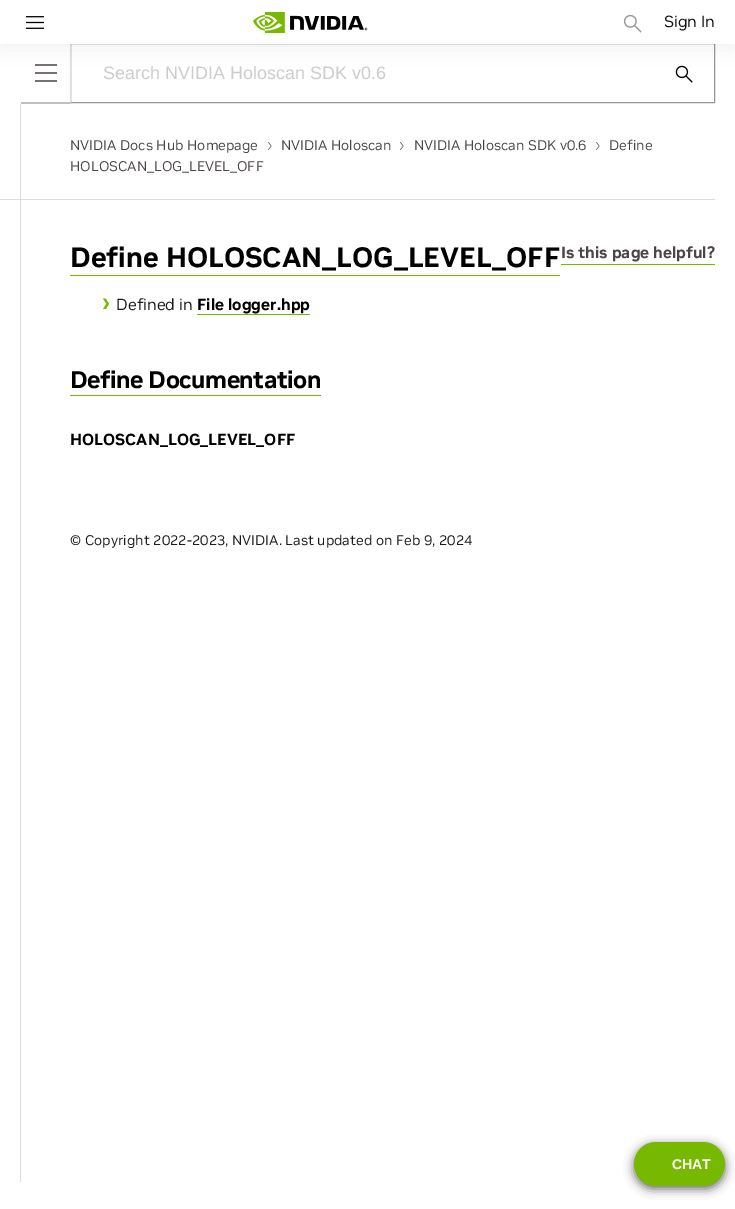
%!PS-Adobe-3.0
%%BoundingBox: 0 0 735 1209
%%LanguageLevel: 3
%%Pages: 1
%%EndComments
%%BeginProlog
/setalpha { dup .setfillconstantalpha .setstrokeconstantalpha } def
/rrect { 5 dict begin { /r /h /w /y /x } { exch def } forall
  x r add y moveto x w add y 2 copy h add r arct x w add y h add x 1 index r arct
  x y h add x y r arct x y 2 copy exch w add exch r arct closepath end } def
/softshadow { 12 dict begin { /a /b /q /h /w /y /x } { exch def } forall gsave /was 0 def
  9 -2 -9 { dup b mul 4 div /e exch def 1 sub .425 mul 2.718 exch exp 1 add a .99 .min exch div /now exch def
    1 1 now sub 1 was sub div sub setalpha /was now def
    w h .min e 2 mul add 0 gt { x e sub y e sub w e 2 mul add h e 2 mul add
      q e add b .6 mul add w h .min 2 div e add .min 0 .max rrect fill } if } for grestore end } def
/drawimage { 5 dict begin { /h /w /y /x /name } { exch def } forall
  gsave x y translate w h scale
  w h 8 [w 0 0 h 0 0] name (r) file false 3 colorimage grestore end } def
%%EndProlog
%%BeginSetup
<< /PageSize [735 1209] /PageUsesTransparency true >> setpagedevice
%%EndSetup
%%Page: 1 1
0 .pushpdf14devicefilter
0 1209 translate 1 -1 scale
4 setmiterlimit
1 setgray
0 0 735 1209 rectfill
0.592 setgray
70.5 43.5 644 59 rectstroke
1 setgray
70 44 1 59 rectfill
0.867 setgray
newpath 71 17 moveto 71 104 lineto 70 102 lineto 70 17 lineto closepath fill
0.471 0.443 0.443 setrgbcolor
35 64 22 2 rectfill
35 72 22 2 rectfill
(images/4.raw) 675 65 18 18 drawimage
0 setgray
0 5 735 44 0 10 0.05 softshadow
1 setgray
0 0 735 44 rectfill
(images/1.raw) 26 16 18 13 drawimage
(images/2.raw) 253 12 115 21 drawimage
(images/3.raw) 623 14 19 19 drawimage
0.753 setgray
newpath 71 104 moveto 21 104 lineto 21 102 lineto 70 102 lineto closepath fill
0.471 0.443 0.443 setrgbcolor
35 80 22 2 rectfill
0.867 setgray
0 199 715 1 rectfill
20 104 1 1078 rectfill
(images/5.raw) 268 142 4 8 drawimage
(images/5.raw) 400 142 4 8 drawimage
(images/5.raw) 596 142 4 8 drawimage
0.455 0.725 0 setrgbcolor
70 275 490 1 rectfill
561 264 154 1 rectfill
197 314 113 1 rectfill
70 395 251 1 rectfill
0.4 setgray
634 1145 91 44 22 5 1 softshadow
0.463 0.725 0 setrgbcolor
634 1142 91 44 22 rrect fill
/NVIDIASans-Regular [16 0 0 -16 0 0] selectfont
0.067 setgray
664 27 moveto (Sign In) show
/LiberationSans-Regular [18 0 0 -18 0 0] selectfont
0.8 setgray
103 79 moveto (Search NVIDIA Holoscan SDK v0.6) show
/NVIDIASans-Regular [14 0 0 -14 0 0] selectfont
0.294 0.271 0.271 setrgbcolor
70 150 moveto (NVIDIA Docs Hub Homepage) show
281 150 moveto (NVIDIA Holoscan) show
414 150 moveto (NVIDIA Holoscan SDK v0.6) show
609 150 moveto (Define) show
70 171 moveto (HOLOSCAN_LOG_LEVEL_OFF) show
/NVIDIASans-Bold [28 0 0 -28 0 0] selectfont
0 setgray
70 267 moveto (Define HOLOSCAN_LOG_LEVEL_OFF) show
/NVIDIASans-Bold [16 0 0 -16 0 0] selectfont
0.294 0.271 0.271 setrgbcolor
561 258 moveto (Is this page helpful?) show
/NVIDIASans-Medium [24 0 0 -24 0 0] selectfont
0.455 0.725 0 setrgbcolor
102 310 moveto (›) show
/NVIDIASans-Regular [16 0 0 -16 0 0] selectfont
0.102 setgray
116 310 moveto (Defined in) show
/NVIDIASans-Bold [16 0 0 -16 0 0] selectfont
0 setgray
197 310 moveto (File logger.hpp) show
/NVIDIASans-Bold [24 0 0 -24 0 0] selectfont
70 388 moveto -0.5 0 (Define Documentation) ashow
/NVIDIASans-Bold [16 0 0 -16 0 0] selectfont
70 445 moveto (HOLOSCAN_LOG_LEVEL_OFF) show
/NVIDIASans-Regular [14 0 0 -14 0 0] selectfont
0.102 setgray
70 545 moveto (© Copyright 2022-2023, NVIDIA. Last updated on Feb 9, 2024) show
/LiberationSans-Bold [14 0 0 -14 0 0] selectfont
1 setgray
672 1169 moveto (CHAT) show
.poppdf14devicefilter showpage
%%EOF
